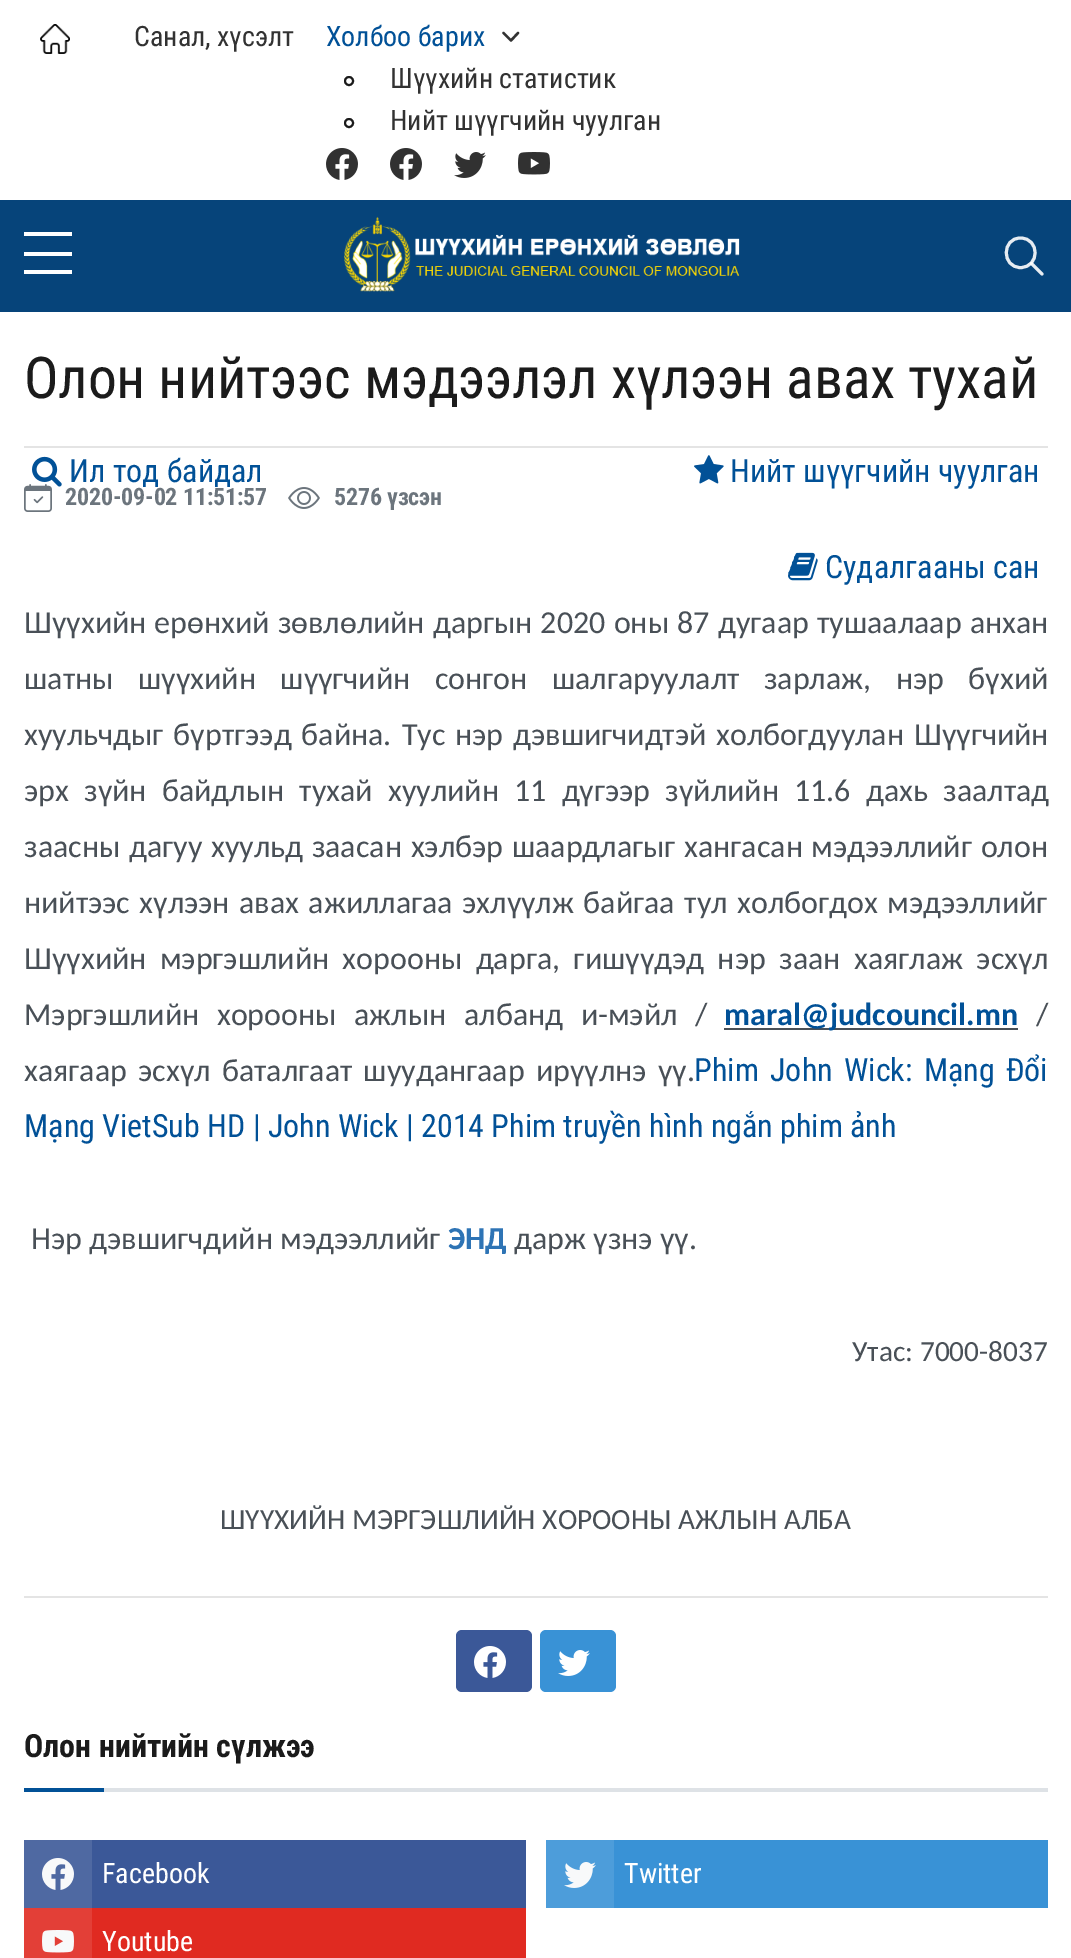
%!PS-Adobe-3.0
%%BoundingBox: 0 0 1071 1958
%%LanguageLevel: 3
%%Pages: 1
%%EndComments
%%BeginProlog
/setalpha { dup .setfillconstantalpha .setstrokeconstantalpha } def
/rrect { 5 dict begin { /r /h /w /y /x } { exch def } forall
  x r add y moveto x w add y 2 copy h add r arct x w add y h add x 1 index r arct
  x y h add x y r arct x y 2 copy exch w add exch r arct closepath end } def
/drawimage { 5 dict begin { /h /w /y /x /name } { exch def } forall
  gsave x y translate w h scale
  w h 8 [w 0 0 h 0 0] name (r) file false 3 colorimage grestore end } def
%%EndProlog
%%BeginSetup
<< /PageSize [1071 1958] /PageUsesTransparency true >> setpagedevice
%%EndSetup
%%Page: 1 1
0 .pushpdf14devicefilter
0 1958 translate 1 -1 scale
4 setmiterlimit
1 setgray
0 0 1071 1958 rectfill
(images/1.raw) 40 24 30 30 drawimage
0.196 setgray
2.4 setlinewidth
1 setlinecap
1 setlinejoin
newpath 503.5 33 moveto 511 40.5 lineto 518 33 lineto stroke
0.106 setgray
2 setlinewidth
0 setlinecap
0 setlinejoin
newpath 349 81 4 0 360 arc closepath stroke
newpath 349 123 4 0 360 arc closepath stroke
(images/2.raw) 326 148 32 32 drawimage
(images/2.raw) 390 148 32 32 drawimage
(images/3.raw) 454 152 32 26 drawimage
(images/4.raw) 518 152 32 23 drawimage
0.024 0.267 0.478 setrgbcolor
0 200 1071 112 rectfill
1 setgray
24 232 48 4 rectfill
24 252 48 4 rectfill
24 270 48 4 rectfill
(images/5.raw) 344 216 396 76 drawimage
0.902 0.925 0.949 setrgbcolor
3 setlinewidth
newpath 1020.5 238 moveto 1001.5 238 1001.5 267.5 1020.5 267.5 curveto 1040 267.5 1040 238 1020.5 238 curveto closepath stroke
0.9 setalpha
1 setgray
1 setlinecap
newpath 1031.5 263.5 moveto 1042 274 lineto stroke
1 setalpha
0.894 setgray
24 446 1024 2 rectfill
(images/6.raw) 24 484 28 28 drawimage
(images/7.raw) 288 487 32 22 drawimage
0.286 0.314 0.341 setrgbcolor
724 1028 294 2 rectfill
0.894 setgray
24 1596 1024 2 rectfill
0.231 0.345 0.596 setrgbcolor
456 1630 76 62 6 rrect fill
(images/8.raw) 474 1646 32 32 drawimage
0.224 0.573 0.839 setrgbcolor
540 1630 76 62 6 rrect fill
(images/9.raw) 558 1650 32 26 drawimage
0.871 0.886 0.902 setrgbcolor
104 1788 944 4 rectfill
0.004 0.318 0.592 setrgbcolor
24 1788 80 4 rectfill
0.231 0.345 0.596 setrgbcolor
92 1840 434 68 rectfill
0.31 0.412 0.635 setrgbcolor
24 1840 68 68 rectfill
(images/10.raw) 42 1858 32 32 drawimage
0.224 0.573 0.839 setrgbcolor
614 1840 434 68 rectfill
0.302 0.616 0.855 setrgbcolor
546 1840 68 68 rectfill
(images/11.raw) 564 1862 32 26 drawimage
0.878 0.165 0.129 setrgbcolor
92 1908 434 50 rectfill
0.89 0.247 0.216 setrgbcolor
24 1908 68 50 rectfill
(images/12.raw) 42 1930 32 23 drawimage
(images/13.raw) 32 456 30 31 drawimage
(images/14.raw) 694 455 30 29 drawimage
(images/15.raw) 788 552 30 29 drawimage
/RobotoCondensed-Regular [28 0 0 -28 0 0] selectfont
0.196 setgray
134 46 moveto (Санал, хүсэлт) show
0.004 0.318 0.592 setrgbcolor
326 46 moveto (Холбоо барих) show
0.196 setgray
390 88 moveto (Шүүхийн статистик) show
390 130 moveto (Нийт шүүгчийн чуулган) show
/RobotoCondensed-Regular [57.6 0 0 -57.6 0 0] selectfont
0.106 setgray
24 398 moveto -0.2 0 (Олон нийтээс мэдээлэл хүлээн авах тухай) ashow
/RobotoCondensed-Bold [24 0 0 -24 0 0] selectfont
0.424 0.459 0.49 setrgbcolor
65 505 moveto -0.2 0 (2020-09-02 11:51:57) ashow
334 505 moveto -0.2 0 (5276 үзсэн) ashow
/Carlito-Regular [32 0 0 -32 0 0] selectfont
0.286 0.314 0.341 setrgbcolor
24 633 moveto 1 0 32 (Шүүхийн ерөнхий зөвлөлийн даргын 2020 оны 87 дугаар тушаалаар анхан) widthshow
24 689 moveto 17.25 0 32 (шатны шүүхийн шүүгчийн сонгон шалгаруулалт зарлаж, нэр бүхий) widthshow
24 745 moveto 2.75 0 32 (хуульчдыг бүртгээд байна. Тус нэр дэвшигчидтэй холбогдуулан Шүүгчийн) widthshow
24 801 moveto 8 0 32 (эрх зүйн байдлын тухай хуулийн 11 дүгээр зүйлийн 11.6 дахь заалтад) widthshow
24 857 moveto 1.5 0 32 (заасны дагуу хуульд заасан хэлбэр шаардлагыг хангасан мэдээллийг олон) widthshow
24 913 moveto 2.25 0 32 (нийтээс хүлээн авах ажиллагаа эхлүүлж байгаа тул холбогдох мэдээллийг) widthshow
24 969 moveto 6.25 0 32 (Шүүхийн мэргэшлийн хорооны дарга, гишүүдэд нэр заан хаяглаж эсхүл) widthshow
24 1025 moveto 10.5 0 32 (Мэргэшлийн хорооны ажлын албанд и-мэйл /) widthshow
/Carlito-Bold [32 0 0 -32 0 0] selectfont
0.004 0.318 0.592 setrgbcolor
724 1025 moveto (maral@judcouncil.mn) show
/Carlito-Regular [32 0 0 -32 0 0] selectfont
0.286 0.314 0.341 setrgbcolor
1036 1025 moveto (/) show
24 1081 moveto 4 0 32 (хаягаар эсхүл баталгаат шуудангаар ирүүлнэ үү.) widthshow
/RobotoCondensed-Regular [32 0 0 -32 0 0] selectfont
0.004 0.318 0.592 setrgbcolor
694 1081 moveto 4 0 32 (Phim John Wick: Mạng Đổi) widthshow
24 1137 moveto (Mạng VietSub HD | John Wick | 2014 Phim truyền hình ngắn phim ảnh) show
/Carlito-Regular [32 0 0 -32 0 0] selectfont
0.286 0.314 0.341 setrgbcolor
31 1249 moveto (Нэр дэвшигчдийн мэдээллийг) show
/Carlito-Bold [32 0 0 -32 0 0] selectfont
0.18 0.455 0.71 setrgbcolor
448 1249 moveto (ЭНД) show
/Carlito-Regular [32 0 0 -32 0 0] selectfont
0.286 0.314 0.341 setrgbcolor
514 1249 moveto (дарж үзнэ үү.) show
/Carlito-Regular [29.3 0 0 -29.3 0 0] selectfont
852 1361 moveto (Утас: 7000-8037) show
220 1529 moveto (ШҮҮХИЙН МЭРГЭШЛИЙН ХОРООНЫ АЖЛЫН АЛБА) show
/RobotoCondensed-Bold [32 0 0 -32 0 0] selectfont
0.106 setgray
24 1757 moveto (Олон нийтийн сүлжээ) show
/RobotoCondensed-Regular [28 0 0 -28 0 0] selectfont
1 setgray
102 1883 moveto (Facebook) show
624 1883 moveto (Twitter) show
102 1951 moveto (Youtube) show
/RobotoCondensed-Regular [32 0 0 -32 0 0] selectfont
0.004 0.318 0.592 setrgbcolor
69 482 moveto (Ил тод байдал) show
730 482 moveto (Нийт шүүгчийн чуулган) show
825 578 moveto (Судалгааны сан) show
.poppdf14devicefilter showpage
%%EOF
